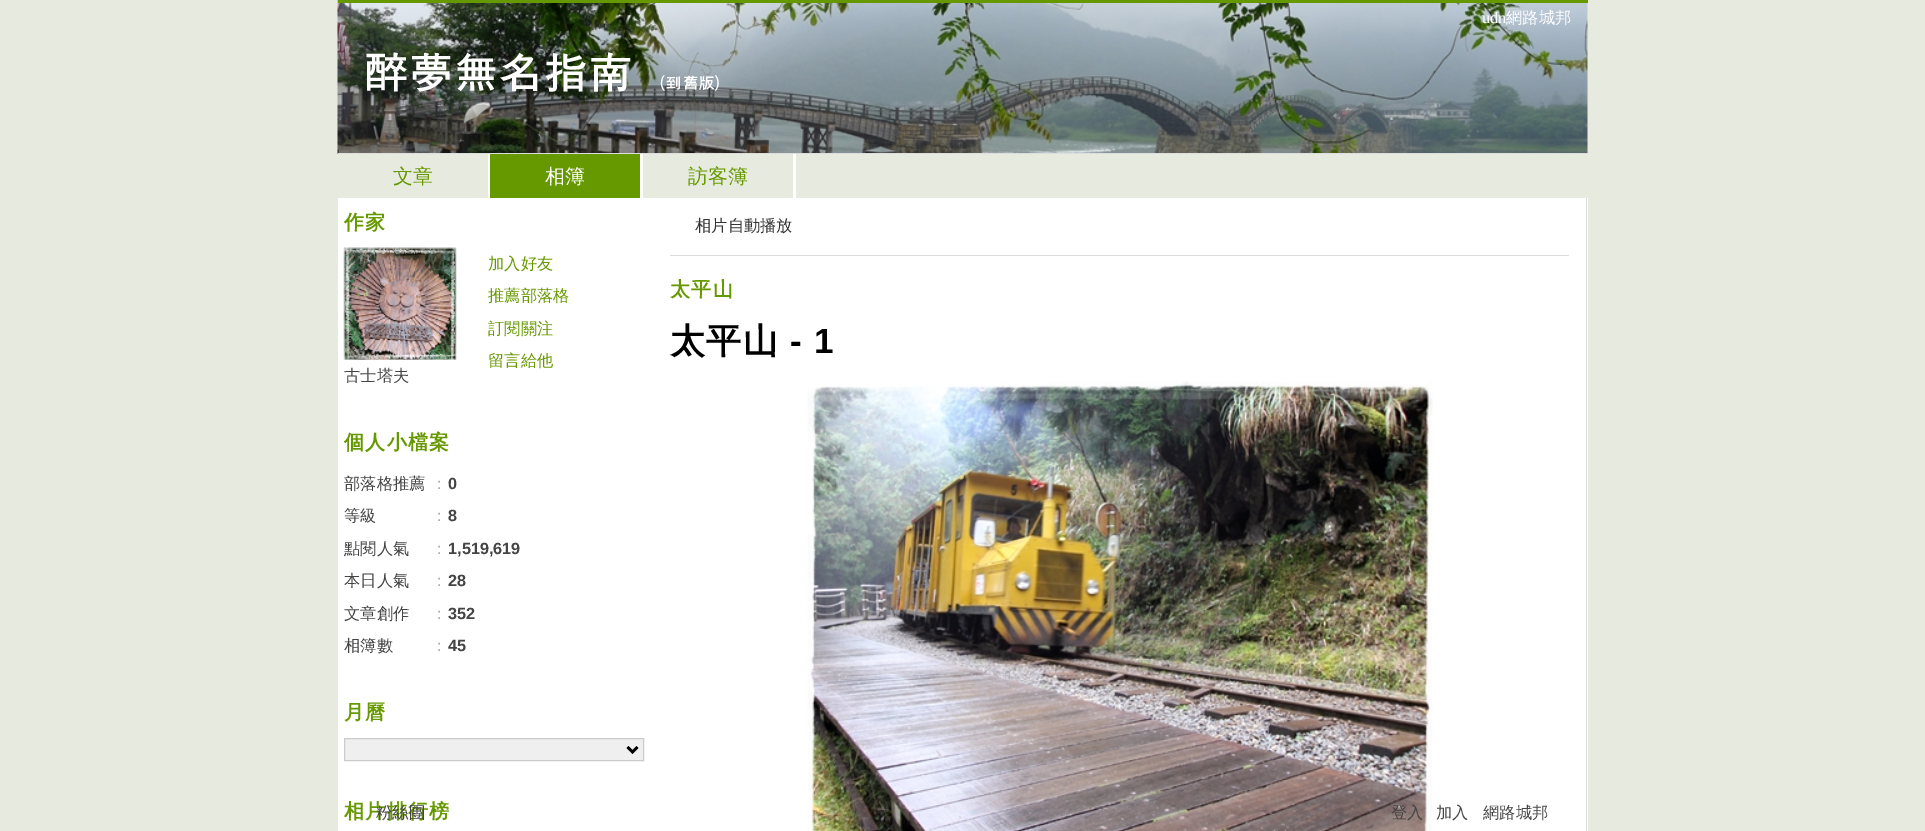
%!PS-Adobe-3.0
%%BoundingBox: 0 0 1925 831
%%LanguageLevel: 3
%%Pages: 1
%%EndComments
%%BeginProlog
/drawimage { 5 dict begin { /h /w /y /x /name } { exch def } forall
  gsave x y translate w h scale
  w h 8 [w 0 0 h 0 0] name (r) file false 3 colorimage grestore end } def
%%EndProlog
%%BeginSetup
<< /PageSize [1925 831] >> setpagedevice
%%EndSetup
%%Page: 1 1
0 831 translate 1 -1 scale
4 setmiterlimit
0.906 0.922 0.875 setrgbcolor
0 0 1925 831 rectfill
(images/1.raw) 337 0 1251 154 drawimage
0.4 0.6 0 setrgbcolor
338 0 1250 3 rectfill
0.867 setgray
338 153 1250 1 rectfill
1 setgray
488 154 2 44 rectfill
640 154 3 44 rectfill
0.4 0.6 0 setrgbcolor
490 154 150 44 rectfill
1 setgray
793 154 3 44 rectfill
338 198 1250 633 rectfill
(images/2.raw) 343 247 114 113 drawimage
0.937 setgray
newpath 344.5 738.5 moveto 643.5 738.5 lineto 643.5 760.5 lineto 344.5 760.5 lineto closepath gsave fill grestore
0.8 setgray
stroke
0 setgray
2.5 setlinewidth
newpath 627.5 747 moveto 632.5 752 lineto 637.5 747 lineto stroke
0.867 setgray
1586 198 1 633 rectfill
670 255 899 1 rectfill
(images/3.raw) 807 381 626 450 drawimage
/LiberationSerif-Regular [16.25 0 0 -16.25 0 0] selectfont
1 setgray
1482 23 moveto (udn) show
/WenQuanYiZenHei-Medium [16.25 0 0 -16.25 0 0] selectfont
1506 23 moveto (網路城邦) show
/Dotum-Bold [45 0 0 -45 0 0] selectfont
363 89 moveto (醉夢無名指南) show
/Dotum-Bold [16.25 0 0 -16.25 0 0] selectfont
649 89 moveto (（到舊版）) show
/WenQuanYiZenHei-Medium [20 0 0 -20 0 0] selectfont
0.4 0.6 0 setrgbcolor
393 183 moveto (文章) show
1 setgray
545 183 moveto (相簿) show
0.4 0.6 0 setrgbcolor
688 183 moveto (訪客簿) show
/WenQuanYiZenHei-Bold [20 0 0 -20 0 0] selectfont
344 229 moveto 1.25 0 (作家) ashow
/WenQuanYiZenHei-Medium [16.25 0 0 -16.25 0 0] selectfont
488 269 moveto (加入好友) show
488 301 moveto (推薦部落格) show
488 334 moveto (訂閱關注) show
488 366 moveto (留言給他) show
0.267 setgray
344 381 moveto (古士塔夫) show
/WenQuanYiZenHei-Bold [20 0 0 -20 0 0] selectfont
0.4 0.6 0 setrgbcolor
344 449 moveto 1.25 0 (個人小檔案) ashow
/WenQuanYiZenHei-Medium [16.25 0 0 -16.25 0 0] selectfont
0.267 setgray
344 489 moveto (部落格推薦) show
0.667 setgray
431 489 moveto (：) show
/LiberationSans-Bold [16.25 0 0 -16.25 0 0] selectfont
0.267 setgray
448 489 moveto (0) show
/WenQuanYiZenHei-Medium [16.25 0 0 -16.25 0 0] selectfont
344 521 moveto (等級) show
0.667 setgray
431 521 moveto (：) show
/LiberationSans-Bold [16.25 0 0 -16.25 0 0] selectfont
0.267 setgray
448 521 moveto (8) show
/WenQuanYiZenHei-Medium [16.25 0 0 -16.25 0 0] selectfont
344 554 moveto (點閱人氣) show
0.667 setgray
431 554 moveto (：) show
/LiberationSans-Bold [16.25 0 0 -16.25 0 0] selectfont
0.267 setgray
448 554 moveto (1,519,619) show
/WenQuanYiZenHei-Medium [16.25 0 0 -16.25 0 0] selectfont
344 586 moveto (本日人氣) show
0.667 setgray
431 586 moveto (：) show
/LiberationSans-Bold [16.25 0 0 -16.25 0 0] selectfont
0.267 setgray
448 586 moveto (28) show
/WenQuanYiZenHei-Medium [16.25 0 0 -16.25 0 0] selectfont
344 619 moveto (文章創作) show
0.667 setgray
431 619 moveto (：) show
/LiberationSans-Bold [16.25 0 0 -16.25 0 0] selectfont
0.267 setgray
448 619 moveto (352) show
/WenQuanYiZenHei-Medium [16.25 0 0 -16.25 0 0] selectfont
344 651 moveto (相簿數) show
0.667 setgray
431 651 moveto (：) show
/LiberationSans-Bold [16.25 0 0 -16.25 0 0] selectfont
0.267 setgray
448 651 moveto (45) show
/WenQuanYiZenHei-Bold [20 0 0 -20 0 0] selectfont
0.4 0.6 0 setrgbcolor
344 719 moveto 1.25 0 (月曆) ashow
344 818 moveto 1.25 0 (相片排行榜) ashow
/WenQuanYiZenHei-Medium [16.25 0 0 -16.25 0 0] selectfont
0.2 setgray
695 231 moveto (相片自動播放) show
/WenQuanYiZenHei-Bold [20 0 0 -20 0 0] selectfont
0.4 0.6 0 setrgbcolor
670 296 moveto 1.25 0 (太平山) ashow
/WenQuanYiZenHei-Bold [35 0 0 -35 0 0] selectfont
0 setgray
670 353 moveto 1.25 0 (太平山) ashow
/LiberationSans-Bold [35 0 0 -35 0 0] selectfont
790 353 moveto 1.25 0 (- 1) ashow
/WenQuanYiZenHei-Medium [16.25 0 0 -16.25 0 0] selectfont
0.267 setgray
376 818 moveto (粉絲團) show
1391 818 moveto (登入) show
1436 818 moveto (加入) show
1483 818 moveto (網路城邦) show
showpage
%%EOF
